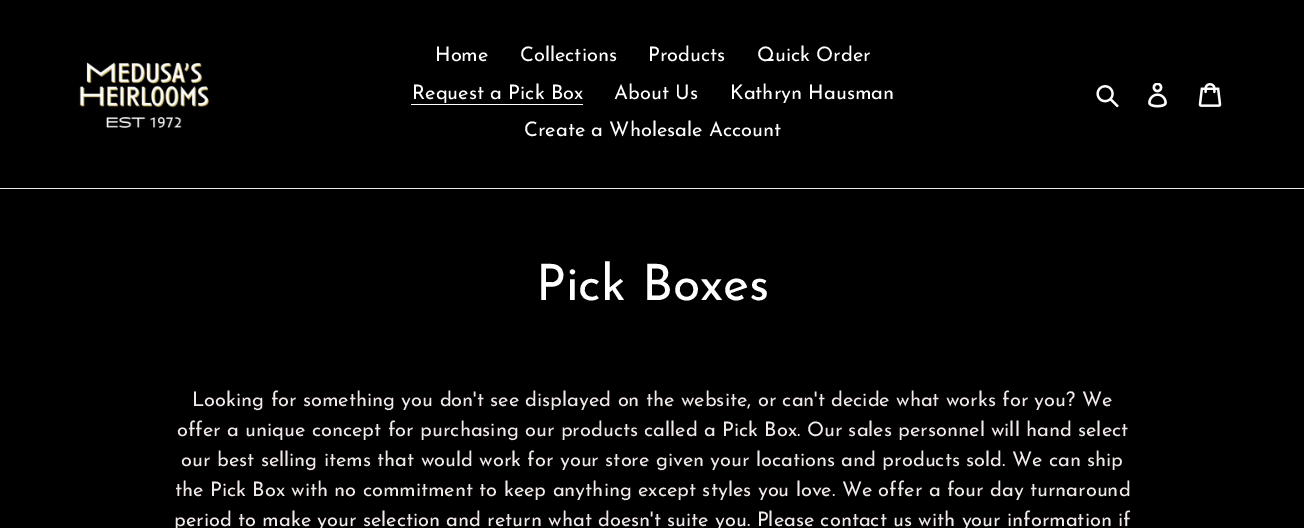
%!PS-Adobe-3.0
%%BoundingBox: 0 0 1304 528
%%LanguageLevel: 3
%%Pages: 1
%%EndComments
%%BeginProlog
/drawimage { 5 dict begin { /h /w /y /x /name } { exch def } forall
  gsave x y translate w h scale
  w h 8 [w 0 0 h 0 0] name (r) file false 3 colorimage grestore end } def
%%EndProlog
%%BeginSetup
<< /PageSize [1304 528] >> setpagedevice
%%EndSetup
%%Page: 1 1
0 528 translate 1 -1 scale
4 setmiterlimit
0 setgray
0 0 1304 528 rectfill
0.922 setgray
0 188 1304 1 rectfill
(images/1.raw) 76 61 133 67 drawimage
1 setgray
411 104 172 1 rectfill
(images/2.raw) 1096 85 23 23 drawimage
(images/3.raw) 1148 83 19 25 drawimage
(images/4.raw) 1198 83 24 24 drawimage
/JosefinSans-Regular [20 0 0 -20 0 0] selectfont
435 61 moveto (Home) show
520 61 moveto (Collections) show
648 61 moveto (Products) show
757 61 moveto (Quick Order) show
412 99 moveto (Request a Pick Box) show
614 99 moveto (About Us) show
730 99 moveto (Kathryn Hausman) show
524 136 moveto (Create a Wholesale Account) show
/JosefinSans-Regular [50 0 0 -50 0 0] selectfont
536 300 moveto (Pick Boxes) show
/JosefinSans-Regular [20 0 0 -20 0 0] selectfont
0.949 0.914 0.914 setrgbcolor
192 406 moveto (Looking for something you don't see displayed on the website, or can't decide what works for you? We) show
177 436 moveto (offer a unique concept for purchasing our products called a Pick Box. Our sales personnel will hand select) show
181 466 moveto (our best selling items that would work for your store given your locations and products sold. We can ship) show
175 496 moveto (the Pick Box with no commitment to keep anything except styles you love. We offer a four day turnaround) show
174 526 moveto (period to make your selection and return what doesn't suite you. Please contact us with your information if) show
showpage
%%EOF
